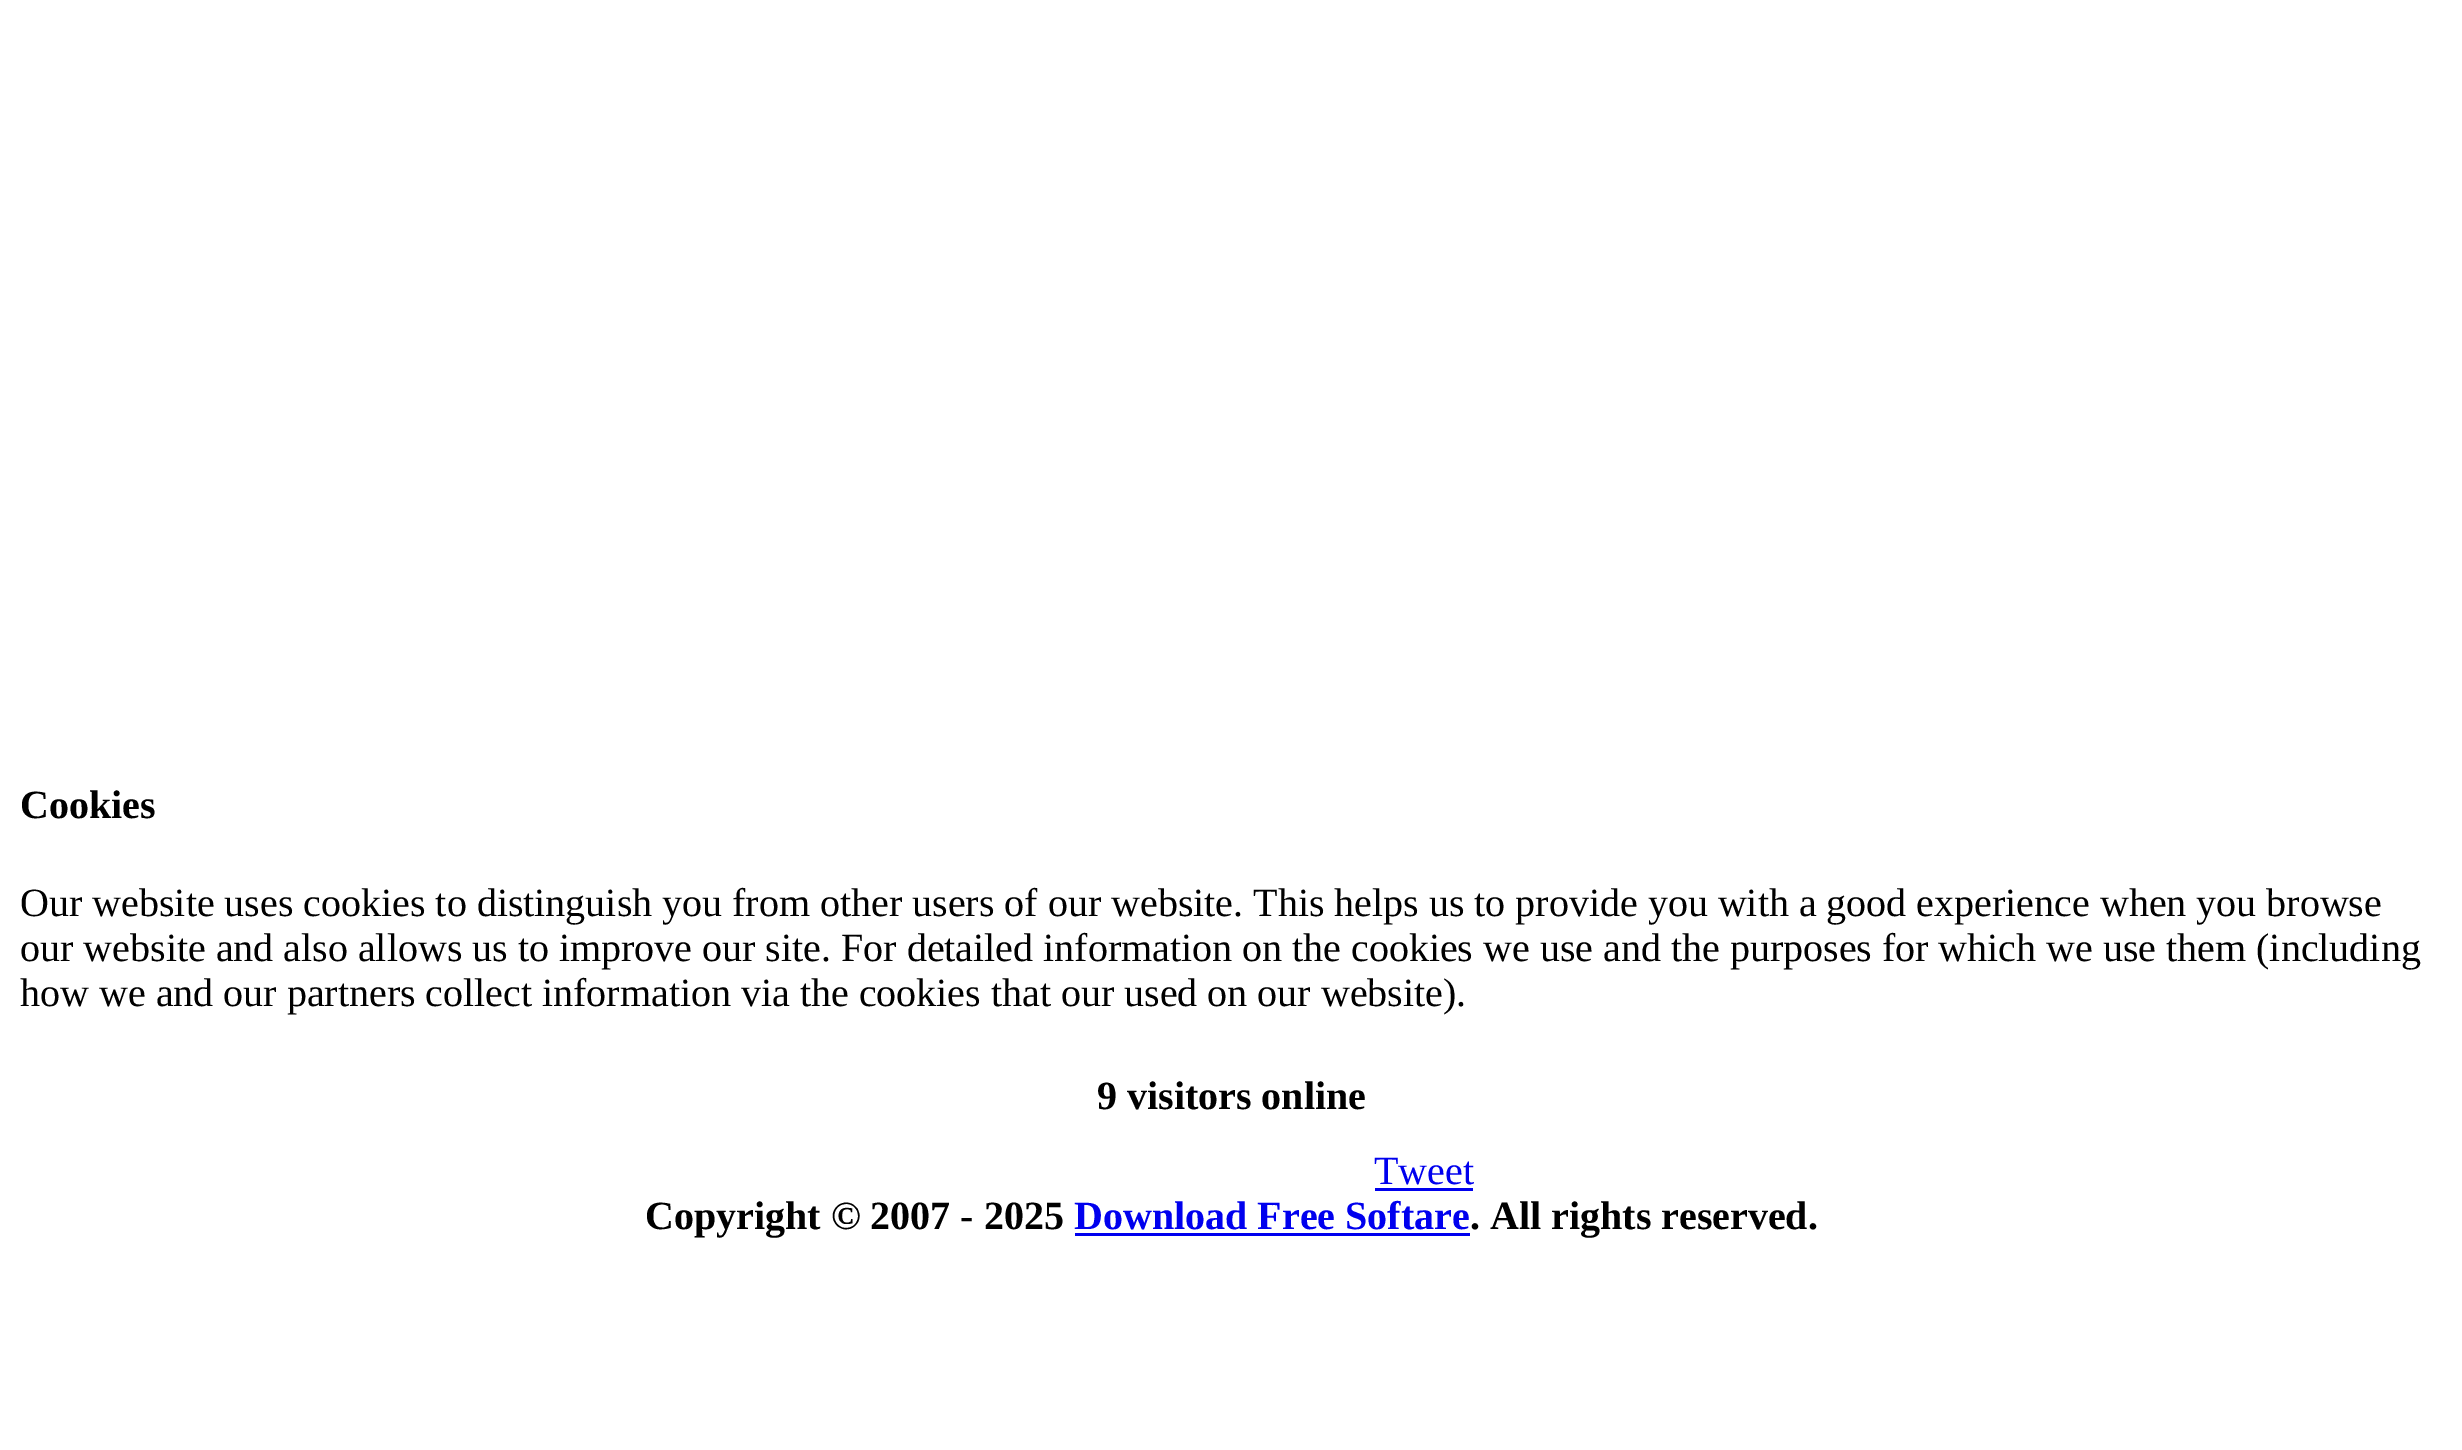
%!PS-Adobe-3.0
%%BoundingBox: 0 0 2462 1450
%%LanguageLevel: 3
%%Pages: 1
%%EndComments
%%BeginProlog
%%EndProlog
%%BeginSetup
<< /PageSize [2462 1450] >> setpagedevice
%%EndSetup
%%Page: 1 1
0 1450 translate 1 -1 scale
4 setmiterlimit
1 setgray
0 0 2462 1450 rectfill
0 0 0.933 setrgbcolor
1375 1188 98 3 rectfill
1075 1233 395 3 rectfill
/LiberationSerif-Bold [40 0 0 -40 0 0] selectfont
0 setgray
20 818 moveto (Cookies) show
/LiberationSerif-Regular [40 0 0 -40 0 0] selectfont
20 916 moveto (Our website uses cookies to distinguish you from other users of our website. This helps us to provide you with a good experience when you browse) show
20 961 moveto (our website and also allows us to improve our site. For detailed information on the cookies we use and the purposes for which we use them \(including) show
20 1006 moveto (how we and our partners collect information via the cookies that our used on our website\).) show
/LiberationSerif-Bold [40 0 0 -40 0 0] selectfont
1097 1109 moveto (9 visitors online) show
/LiberationSerif-Regular [40 0 0 -40 0 0] selectfont
0 0 0.933 setrgbcolor
1374 1184 moveto (Tweet) show
/LiberationSerif-Bold [40 0 0 -40 0 0] selectfont
0 setgray
645 1229 moveto (Copyright © 2007 - 2025) show
0 0 0.933 setrgbcolor
1074 1229 moveto (Download Free Softare) show
0 setgray
1470 1229 moveto (. All rights reserved.) show
showpage
%%EOF
